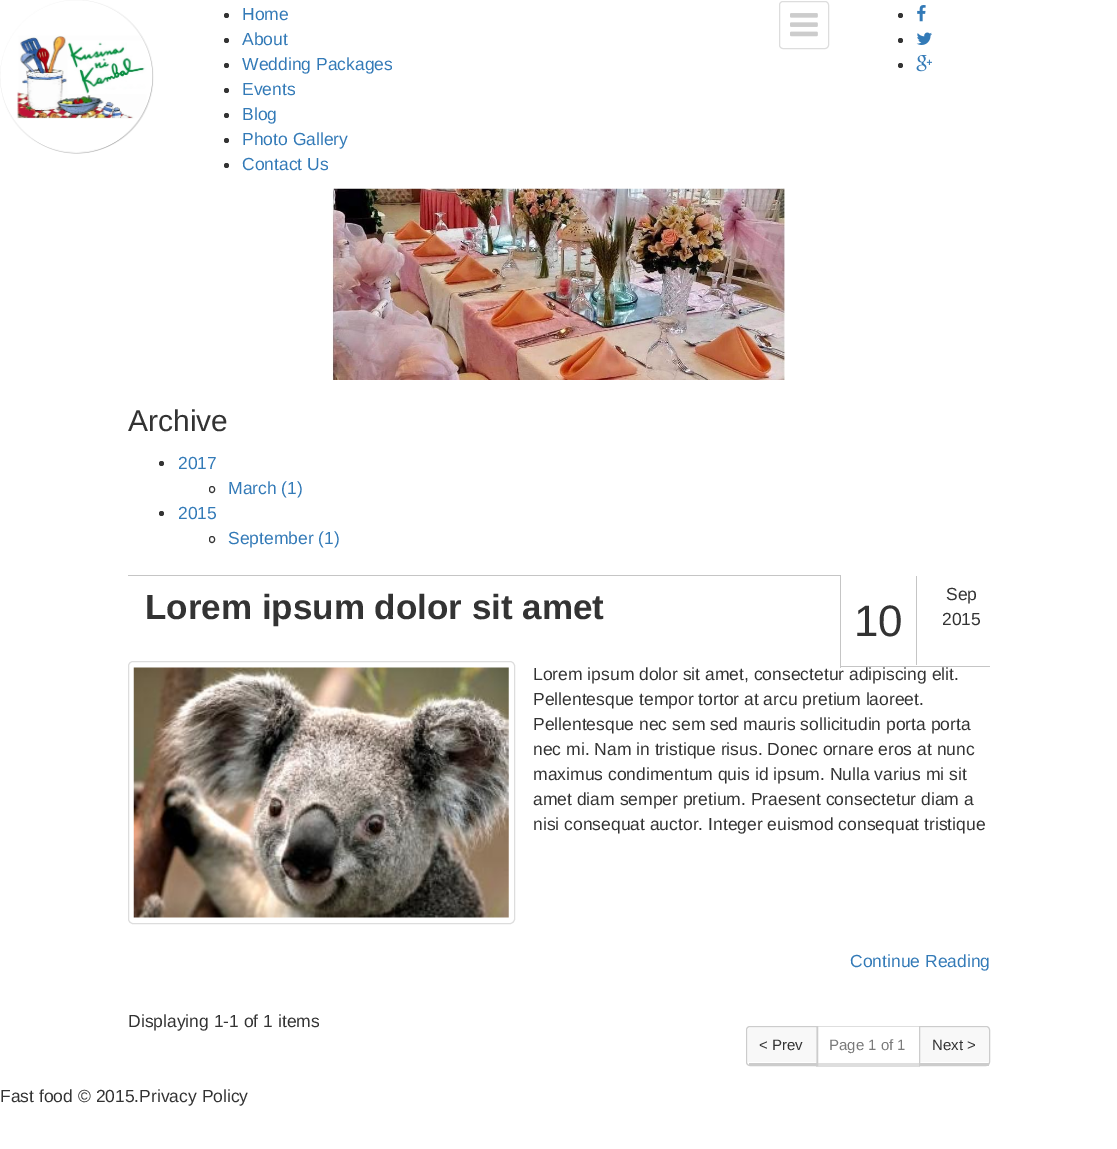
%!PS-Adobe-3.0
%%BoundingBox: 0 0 1117 1149
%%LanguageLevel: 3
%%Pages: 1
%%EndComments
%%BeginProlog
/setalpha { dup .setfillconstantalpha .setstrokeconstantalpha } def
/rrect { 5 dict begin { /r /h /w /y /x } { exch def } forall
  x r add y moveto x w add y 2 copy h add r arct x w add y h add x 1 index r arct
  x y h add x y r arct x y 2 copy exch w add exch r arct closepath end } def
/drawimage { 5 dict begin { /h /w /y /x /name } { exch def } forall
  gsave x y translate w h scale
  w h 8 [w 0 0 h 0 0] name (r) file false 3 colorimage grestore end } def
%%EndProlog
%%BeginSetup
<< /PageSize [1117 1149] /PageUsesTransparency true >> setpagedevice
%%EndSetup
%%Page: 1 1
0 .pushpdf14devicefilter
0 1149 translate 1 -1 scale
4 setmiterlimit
1 setgray
0 0 1117 1149 rectfill
(images/1.raw) 0 0 154 154 drawimage
0.2 setgray
newpath 226.5 15.5 2.5 0 360 arc closepath fill
newpath 226.5 40.5 2.5 0 360 arc closepath fill
newpath 226.5 65.5 2.5 0 360 arc closepath fill
newpath 226.5 90.5 2.5 0 360 arc closepath fill
newpath 226.5 115.5 2.5 0 360 arc closepath fill
newpath 226.5 140.5 2.5 0 360 arc closepath fill
newpath 226.5 165.5 2.5 0 360 arc closepath fill
0.867 setgray
779.5 1.5 49 47 3.5 rrect stroke
(images/2.raw) 790 13 28 24 drawimage
0.2 setgray
newpath 900.5 15.5 2.5 0 360 arc closepath fill
(images/3.raw) 917 5 9 17 drawimage
newpath 900.5 40.5 2.5 0 360 arc closepath fill
(images/4.raw) 916 32 16 13 drawimage
newpath 900.5 65.5 2.5 0 360 arc closepath fill
(images/5.raw) 916 55 16 17 drawimage
(images/6.raw) 331 188 454 192 drawimage
newpath 161.5 463.5 2.5 0 360 arc closepath fill
209.5 486.5 5 6 2.5 rrect stroke
newpath 161.5 513.5 2.5 0 360 arc closepath fill
209.5 536.5 5 6 2.5 rrect stroke
0.773 setgray
128 575 712 1 rectfill
840 666 150 1 rectfill
916 576 1 89 rectfill
0.867 setgray
128.5 661.5 386 262 4.5 rrect stroke
(images/7.raw) 133 667 376 251 drawimage
0.973 setgray
newpath 750 1028 moveto 816 1028 lineto 816 1062 lineto 748 1062 lineto 748 1030 lineto 748 1029 749 1028 750 1028 curveto closepath fill
0.8 setgray
newpath 750 1026.5 moveto 817.5 1026.5 lineto 817.5 1065.5 lineto 750 1065.5 lineto 748 1065.5 746.5 1064 746.5 1062 curveto 746.5 1030 lineto 746.5 1028 748 1026.5 750 1026.5 curveto closepath stroke
749 1063 69 3 rectfill
0.65 setalpha
816 1026 104 1 rectfill
816 1063 104 4 rectfill
816 1026 1 40 rectfill
1 setalpha
0.973 setgray
newpath 920 1028 moveto 986 1028 lineto 988 1028 989 1029 989 1030 curveto 989 1062 lineto 920 1062 lineto closepath fill
0.8 setgray
newpath 919.5 1026.5 moveto 986 1026.5 lineto 988 1026.5 989.5 1028 989.5 1030 curveto 989.5 1062 lineto 989.5 1064 988 1065.5 986 1065.5 curveto 919.5 1065.5 lineto closepath stroke
919 1063 70 3 rectfill
/LiberationSans-Regular [17.5 0 0 -17.5 0 0] selectfont
0.2 0.478 0.718 setrgbcolor
242 20 moveto (Home) show
242 45 moveto (About) show
242 70 moveto (Wedding Packages) show
242 95 moveto (Events) show
242 120 moveto (Blog) show
242 145 moveto (Photo Gallery) show
242 170 moveto (Contact Us) show
/LiberationSans-Regular [30 0 0 -30 0 0] selectfont
0.2 setgray
128 431 moveto (Archive) show
/LiberationSans-Regular [17.5 0 0 -17.5 0 0] selectfont
0.2 0.478 0.718 setrgbcolor
178 469 moveto (2017) show
228 494 moveto (March \(1\)) show
178 519 moveto (2015) show
228 544 moveto (September \(1\)) show
/LiberationSans-Bold [35 0 0 -35 0 0] selectfont
0.2 setgray
145 619 moveto (Lorem ipsum dolor sit amet) show
/LiberationSans-Regular [44 0 0 -44 0 0] selectfont
854 636 moveto (10) show
/LiberationSans-Regular [17.5 0 0 -17.5 0 0] selectfont
946 600 moveto (Sep) show
942 625 moveto (2015) show
533 680 moveto (Lorem ipsum dolor sit amet, consectetur adipiscing elit.) show
0.773 setgray
840 575 1 93 rectfill
0.2 setgray
533 705 moveto (Pellentesque tempor tortor at arcu pretium laoreet.) show
533 730 moveto (Pellentesque nec sem sed mauris sollicitudin porta porta) show
533 755 moveto (nec mi. Nam in tristique risus. Donec ornare eros at nunc) show
533 780 moveto (maximus condimentum quis id ipsum. Nulla varius mi sit) show
533 805 moveto (amet diam semper pretium. Praesent consectetur diam a) show
533 830 moveto (nisi consequat auctor. Integer euismod consequat tristique) show
0.2 0.478 0.718 setrgbcolor
850 967 moveto (Continue Reading) show
0.2 setgray
128 1027 moveto (Displaying 1-1 of 1 items) show
/LiberationSans-Regular [15 0 0 -15 0 0] selectfont
759 1050 moveto (< Prev) show
0.478 setgray
829 1050 moveto (Page 1 of 1) show
0.2 setgray
932 1050 moveto (Next >) show
/LiberationSans-Regular [17.5 0 0 -17.5 0 0] selectfont
0 1102 moveto (Fast food © 2015.Privacy Policy) show
.poppdf14devicefilter showpage
%%EOF
